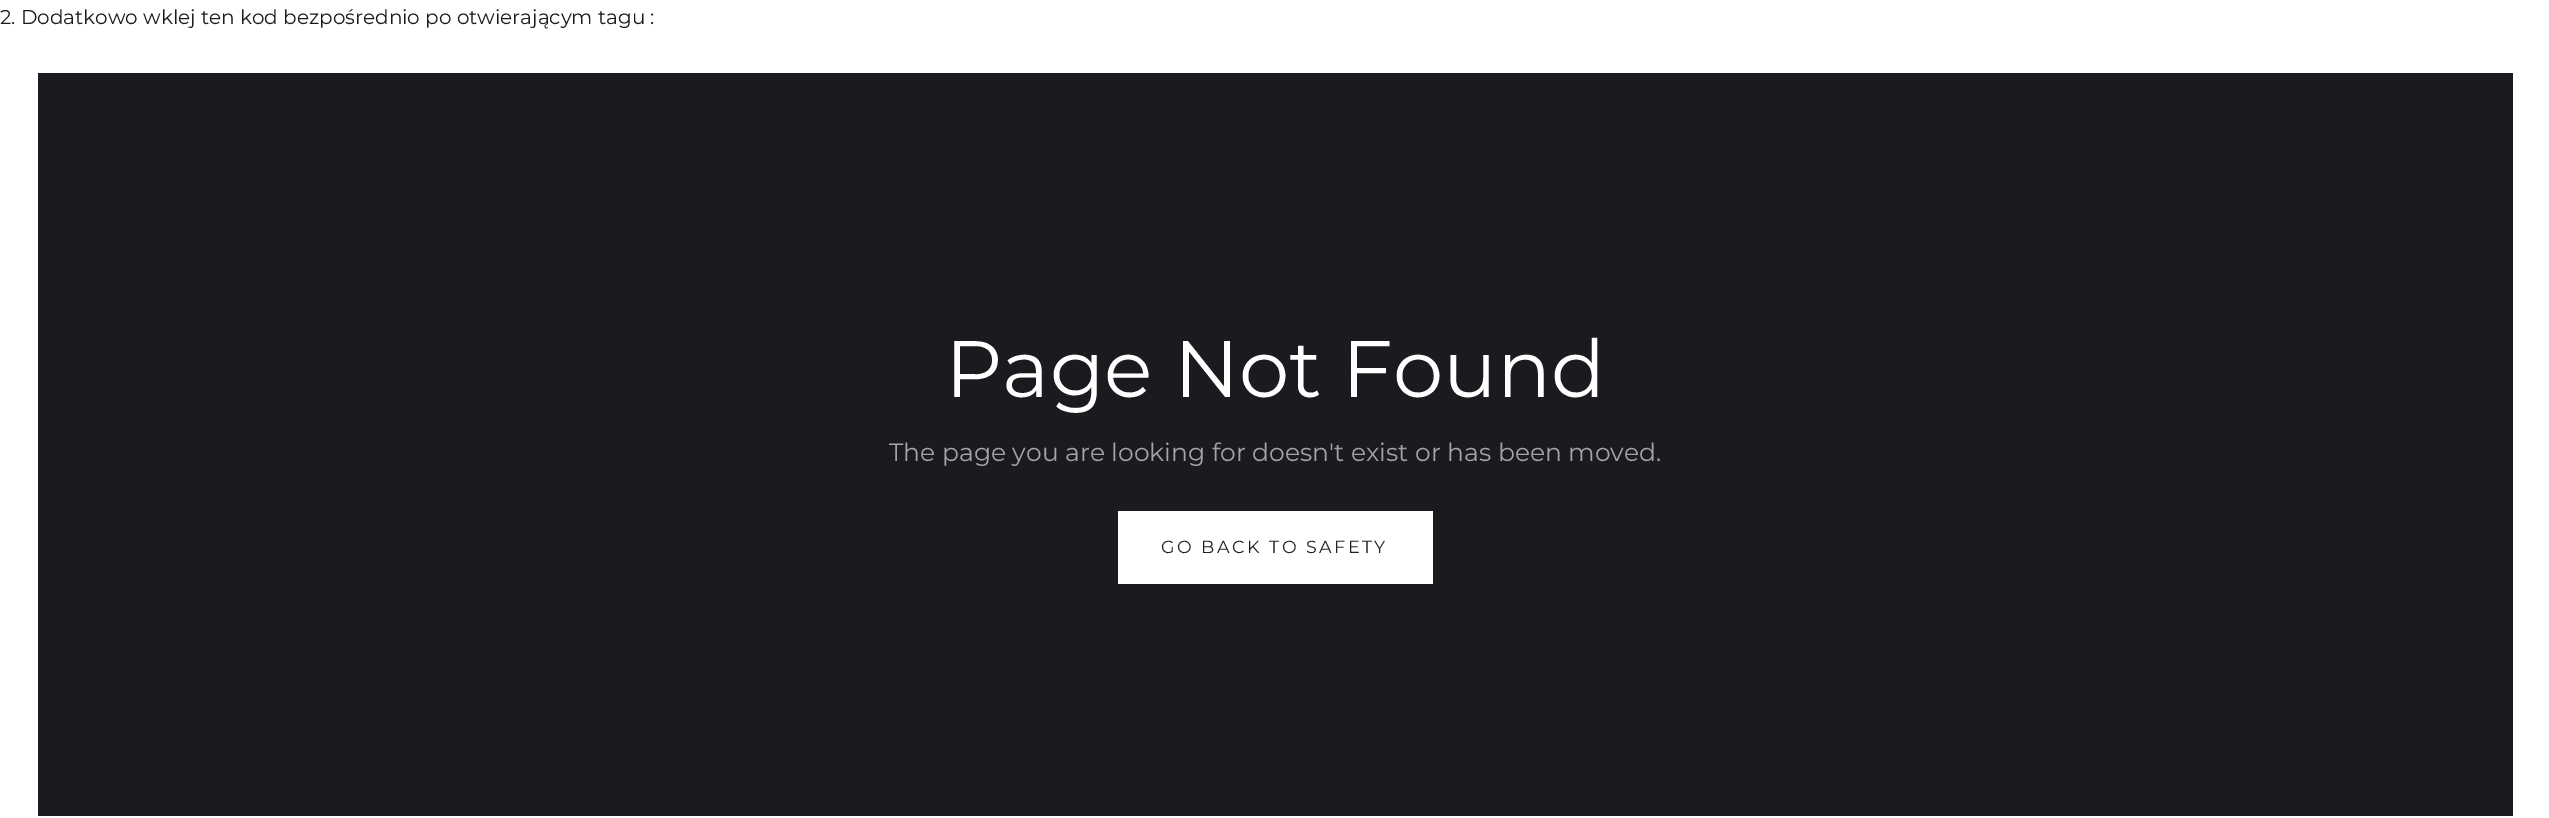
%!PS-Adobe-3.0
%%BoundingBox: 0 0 2549 818
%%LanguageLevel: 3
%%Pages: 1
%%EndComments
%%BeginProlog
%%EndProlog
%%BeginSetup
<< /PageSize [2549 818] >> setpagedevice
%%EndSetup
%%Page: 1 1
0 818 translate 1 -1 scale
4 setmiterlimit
1 setgray
0 0 2549 818 rectfill
0.102 0.106 0.122 setrgbcolor
38 73 2475 743 rectfill
1 setgray
1118 511 315 73 rectfill
/Montserrat-Regular [20 0 0 -20 0 0] selectfont
0.102 0.106 0.122 setrgbcolor
0 24 moveto (2. Dodatkowo wklej ten kod bezpośrednio po otwierającym tagu :) show
/Montserrat-Regular [80 0 0 -80 0 0] selectfont
1 setgray
945 397 moveto (Page Not Found) show
/Montserrat-Regular [25 0 0 -25 0 0] selectfont
0.639 0.643 0.647 setrgbcolor
889 461 moveto (The page you are looking for doesn't exist or has been moved.) show
/Montserrat-Regular [17.5 0 0 -17.5 0 0] selectfont
0.125 setgray
1161 553 moveto 2.5 0 (GO BACK TO SAFETY) ashow
showpage
%%EOF
